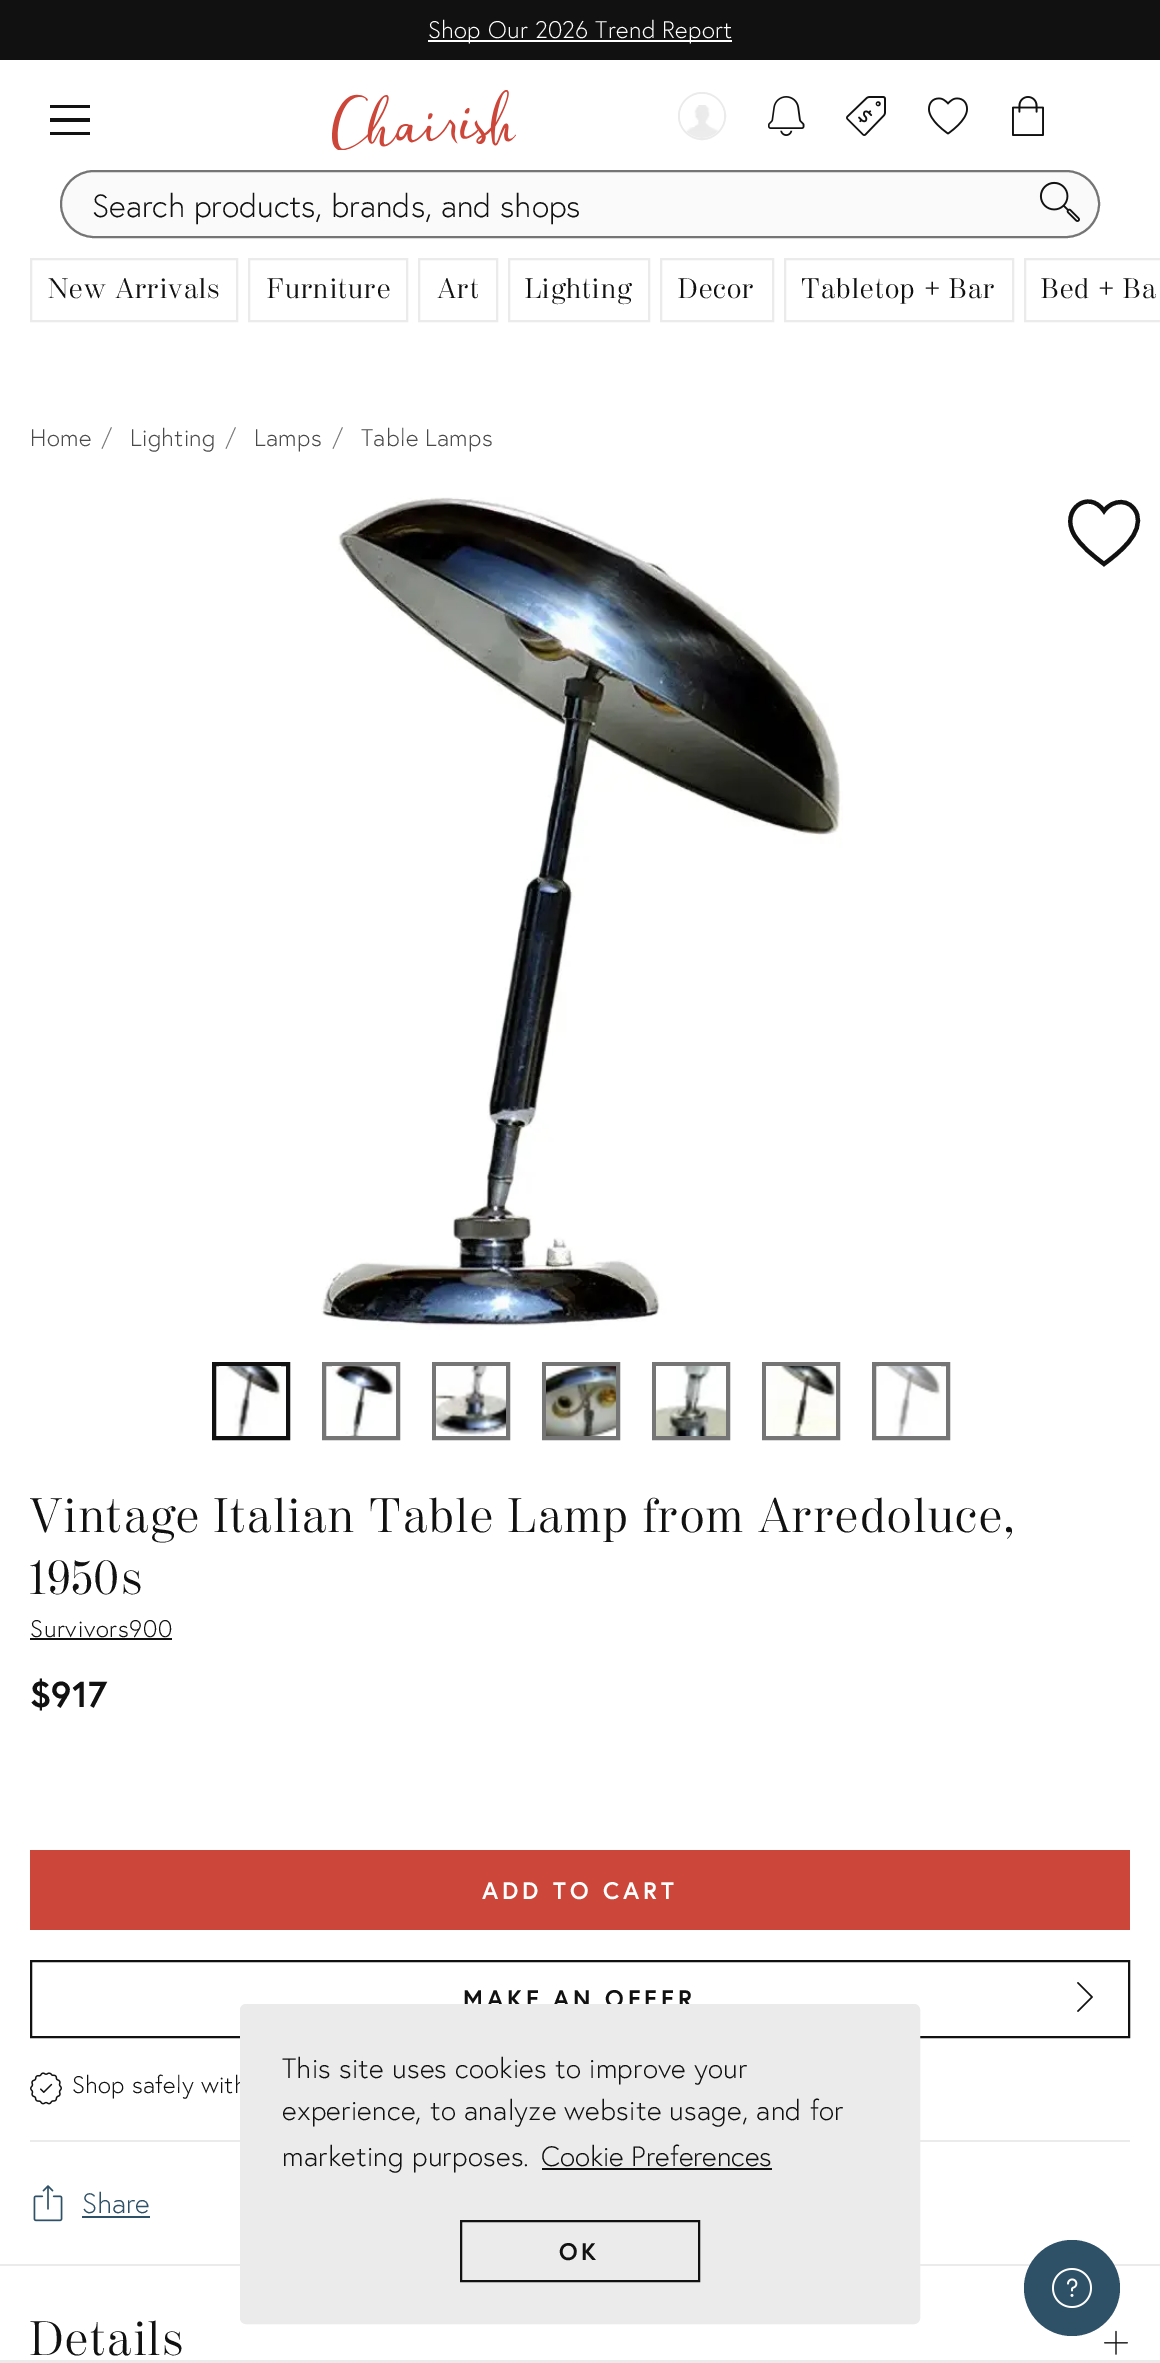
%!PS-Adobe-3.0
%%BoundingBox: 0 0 1160 2363
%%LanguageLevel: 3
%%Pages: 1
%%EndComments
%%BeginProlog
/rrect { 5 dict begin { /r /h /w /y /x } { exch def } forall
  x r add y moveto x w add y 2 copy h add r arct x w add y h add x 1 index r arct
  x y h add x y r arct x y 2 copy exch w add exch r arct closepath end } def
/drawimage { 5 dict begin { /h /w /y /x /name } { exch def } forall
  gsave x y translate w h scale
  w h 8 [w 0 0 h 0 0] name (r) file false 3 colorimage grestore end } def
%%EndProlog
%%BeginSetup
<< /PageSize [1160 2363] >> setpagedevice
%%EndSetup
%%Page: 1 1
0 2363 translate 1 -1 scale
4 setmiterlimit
1 setgray
0 0 1160 2363 rectfill
0.067 setgray
0 0 1160 60 rectfill
1 setgray
428 40 304 2 rectfill
0.067 setgray
newpath 50 132 moveto 90 132 lineto 90 135 lineto 50 135 lineto closepath 50 105 moveto 90 105 lineto 90 108 lineto 50 108 lineto closepath 50 118 moveto 90 118 lineto 90 122 lineto 50 122 lineto closepath fill
(images/1.raw) 332 90 184 60 drawimage
0.922 setgray
2 setlinewidth
newpath 702 116 23 0 360 arc closepath stroke
(images/2.raw) 680 94 44 44 drawimage
(images/3.raw) 768 96 37 40 drawimage
(images/4.raw) 846 96 40 40 drawimage
(images/5.raw) 928 97 40 38 drawimage
(images/6.raw) 1012 96 32 40 drawimage
0.98 setgray
61 171 1038 66 33 rrect gsave fill grestore
0.459 setgray
stroke
(images/7.raw) 1039 181 41 41 drawimage
0.922 setgray
31 259 206 62 rectstroke
249 259 158 62 rectstroke
419 259 78 62 rectstroke
509 259 140 62 rectstroke
661 259 112 62 rectstroke
785 259 228 62 rectstroke
1025 259 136 62 rectstroke
(images/8.raw) 321 497 522 833 drawimage
0.067 setgray
4 setlinewidth
214 1364 74 74 rectstroke
(images/9.raw) 219 1366 62 70 drawimage
0.459 setgray
324 1364 74 74 rectstroke
(images/10.raw) 332 1366 63 70 drawimage
434 1364 74 74 rectstroke
(images/11.raw) 436 1366 70 70 drawimage
544 1364 74 74 rectstroke
(images/12.raw) 546 1366 70 70 drawimage
654 1364 74 74 rectstroke
(images/13.raw) 656 1366 70 70 drawimage
764 1364 74 74 rectstroke
(images/14.raw) 766 1366 70 70 drawimage
874 1364 74 74 rectstroke
(images/15.raw) 879 1366 62 70 drawimage
0.067 setgray
4.2 setlinewidth
newpath 1136.5 513 moveto 1130.5 498.5 1112.5 499 1104 511 curveto 1088.5 488.5 1060 510 1074 534.5 curveto 1081 546.5 1093 555.5 1104 564 curveto 1118 553.5 1144.5 533.5 1136.5 513 curveto closepath stroke
30 1638 142 2 rectfill
0.8 0.275 0.224 setrgbcolor
30 1850 1100 80 rectfill
0.067 setgray
2 setlinewidth
31 1961 1098 76 rectstroke
(images/16.raw) 1077 1982 16 30 drawimage
0.922 setgray
30 2140 1100 2 rectfill
(images/17.raw) 30 2072 32 33 drawimage
(images/18.raw) 33 2185 30 37 drawimage
0.18 0.318 0.404 setrgbcolor
82 2216 68 2 rectfill
0.922 setgray
0 2264 1160 2 rectfill
(images/19.raw) 1104 2330 24 25 drawimage
0 2360 1160 3 rectfill
0.18 0.318 0.404 setrgbcolor
newpath 1072 2288 48 0 360 arc closepath fill
(images/20.raw) 1052 2268 40 40 drawimage
/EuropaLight-Light [24 0 0 -24 0 0] selectfont
1 setgray
428 38 moveto 0.3 0 (Shop Our 2026 Trend Report) ashow
/EuropaLight-Light [32 0 0 -32 0 0] selectfont
0.067 setgray
92 217 moveto (Search products, brands, and shops) show
/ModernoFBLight-Light [28 0 0 -28 0 0] selectfont
48 298 moveto 1.2 0 (New Arrivals) ashow
267 298 moveto 1.2 0 (Furniture) ashow
437 298 moveto 1.2 0 (Art) ashow
525 298 moveto 1.2 0 (Lighting) ashow
678 298 moveto 1.2 0 (Decor) ashow
801 298 moveto 1.2 0 (Tabletop + Bar) ashow
1041 298 moveto 1.2 0 (Bed + Ba) ashow
/EuropaLight-Light [24 0 0 -24 0 0] selectfont
0.29 setgray
30 446 moveto 0.3 0 (Home) ashow
0.459 setgray
101 446 moveto 0.3 0 (/) ashow
0.29 setgray
130 446 moveto 0.3 0 (Lighting) ashow
0.459 setgray
225 446 moveto 0.3 0 (/) ashow
0.29 setgray
254 446 moveto 0.3 0 (Lamps) ashow
0.459 setgray
332 446 moveto 0.3 0 (/) ashow
0.29 setgray
361 446 moveto 0.3 0 (Table Lamps) ashow
/ModernoFBLight-Light [48 0 0 -48 0 0] selectfont
0.067 setgray
30 1532 moveto 2 0 (Vintage Italian Table Lamp from Arredoluce,) ashow
30 1594 moveto 2 0 (1950s) ashow
/EuropaLight-Light [24 0 0 -24 0 0] selectfont
30 1637 moveto 0.75 0 (Survivors900) ashow
/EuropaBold-Bold [36 0 0 -36 0 0] selectfont
30 1707 moveto 0.3 0 ($917) ashow
/EuropaBold-Bold [24 0 0 -24 0 0] selectfont
1 setgray
482 1899 moveto 3.8 0 (ADD TO CART) ashow
0.067 setgray
463 2007 moveto 3.8 0 (MAKE AN OFFER) ashow
/EuropaLight-Light [24 0 0 -24 0 0] selectfont
72 2093 moveto 0.3 0 (Shop safely with) ashow
/EuropaLight-Light [28 0 0 -28 0 0] selectfont
0.18 0.318 0.404 setrgbcolor
82 2213 moveto (Share) show
/ModernoFBLight-Light [48 0 0 -48 0 0] selectfont
0.067 setgray
30 2355 moveto 2 0 (Details) ashow
0.922 setgray
241 2005 678 318 5 rrect gsave fill grestore
stroke
/EuropaLight-Light [28 0 0 -28 0 0] selectfont
0.067 setgray
282 2078 moveto 0.3 0 (This site uses cookies to improve your) ashow
282 2120 moveto 0.3 0 (experience, to analyze website usage, and for) ashow
282 2166 moveto 0.3 0 (marketing purposes.) ashow
541 2166 moveto (Cookie Preferences) show
542 2168 230 2 rectfill
461 2221 238 60 rectstroke
/EuropaBold-Bold [24 0 0 -24 0 0] selectfont
559 2260 moveto 3.8 0 (OK) ashow
showpage
%%EOF
